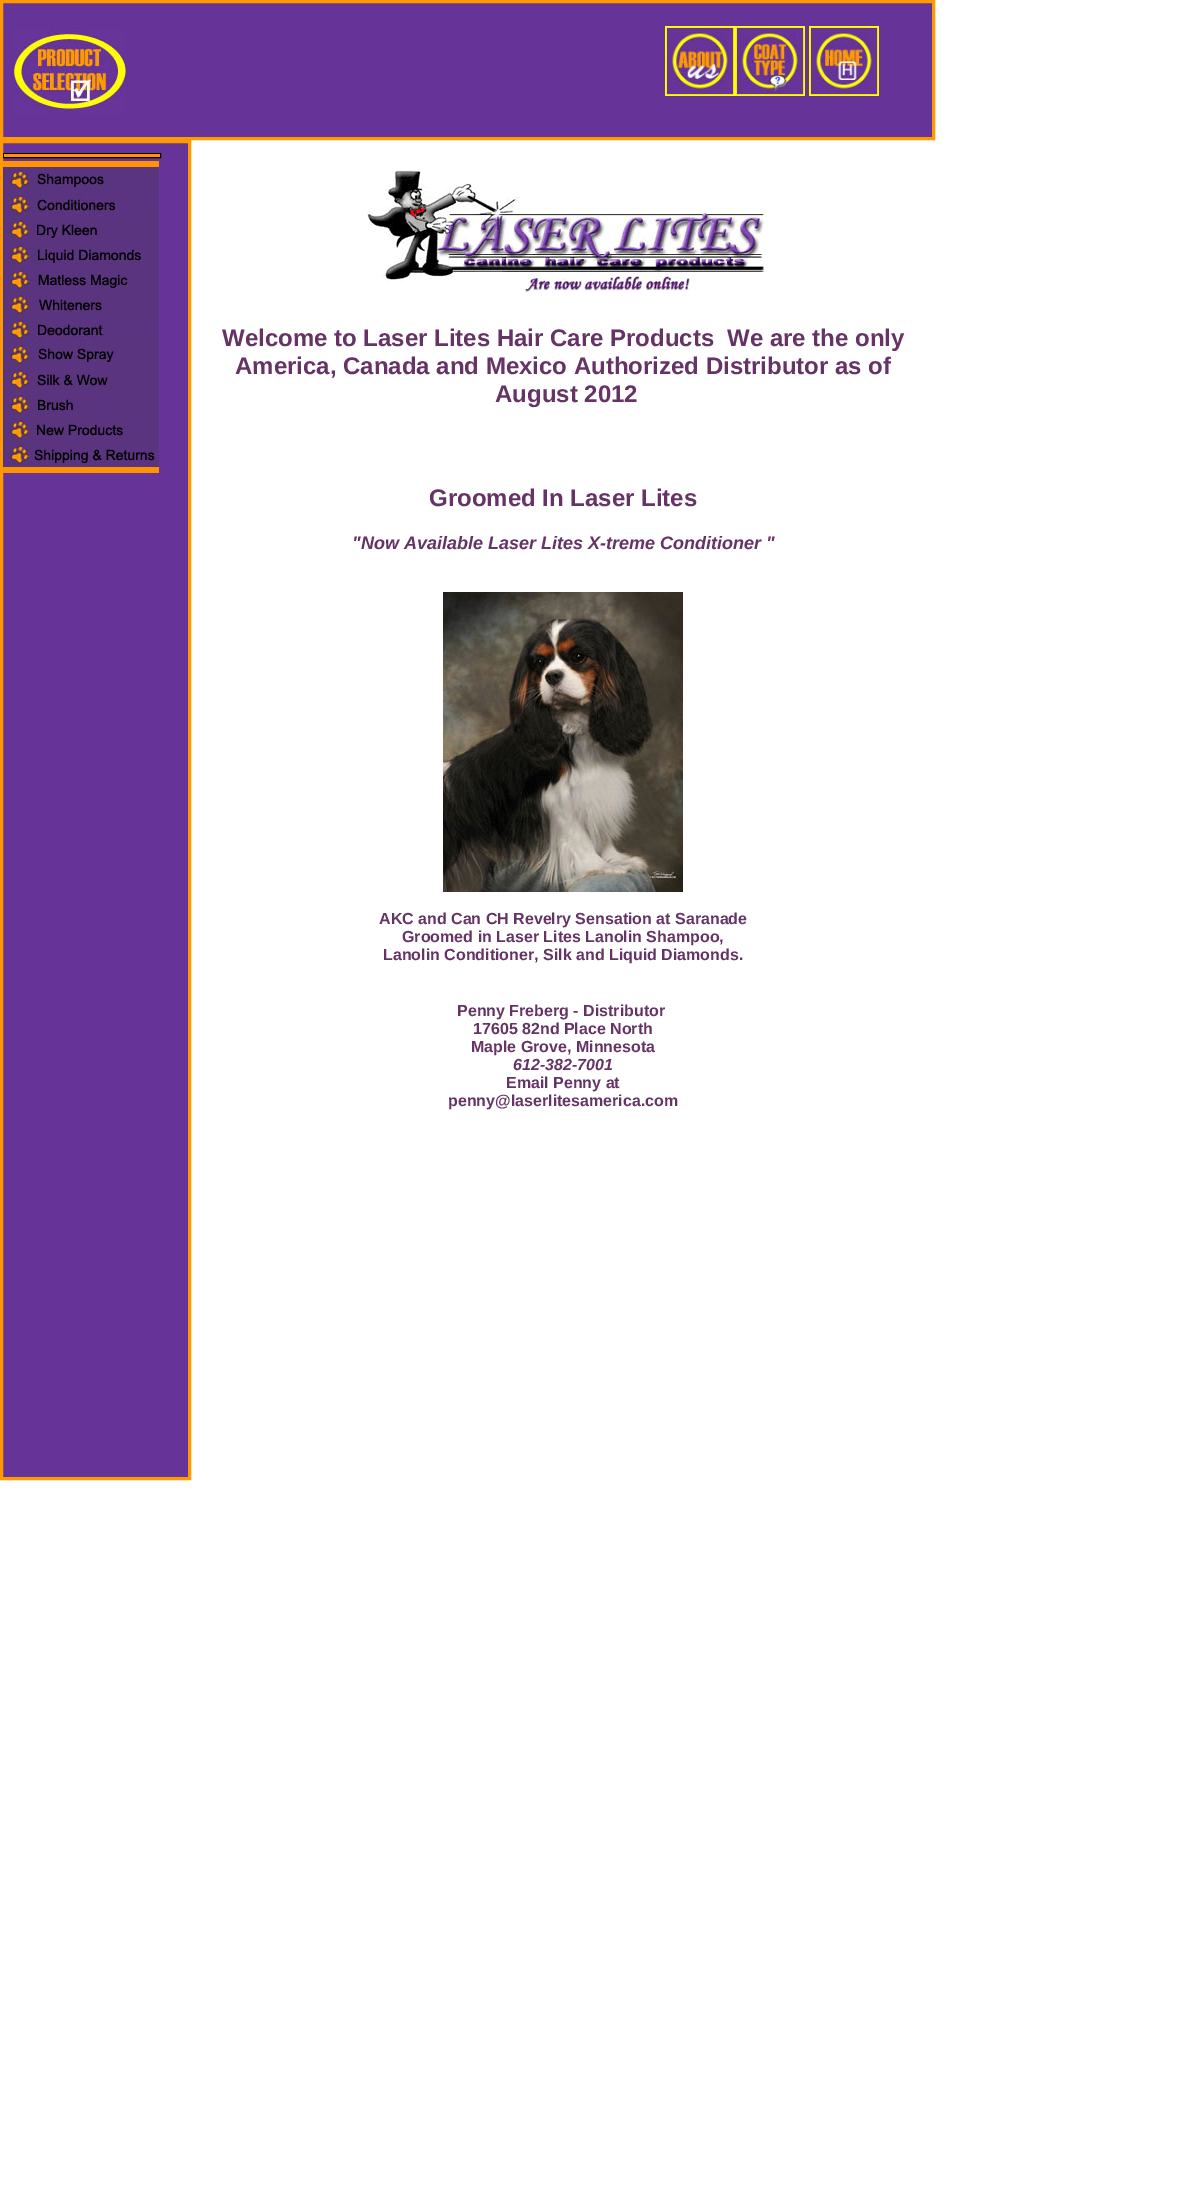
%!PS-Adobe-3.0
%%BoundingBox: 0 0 1191 2198
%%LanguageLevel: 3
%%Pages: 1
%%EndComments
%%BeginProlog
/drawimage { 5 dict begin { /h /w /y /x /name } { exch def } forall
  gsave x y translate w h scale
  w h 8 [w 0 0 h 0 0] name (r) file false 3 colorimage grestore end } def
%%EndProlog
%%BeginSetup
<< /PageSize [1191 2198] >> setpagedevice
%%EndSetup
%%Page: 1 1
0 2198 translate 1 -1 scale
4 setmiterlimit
1 setgray
0 0 1191 2198 rectfill
0.4 0.2 0.596 setrgbcolor
newpath 1.5 1.5 moveto 933.5 1.5 lineto 933.5 138.5 lineto 1.5 138.5 lineto closepath gsave fill grestore
1 0.6 0 setrgbcolor
3 setlinewidth
stroke
(images/1.raw) 14 28 112 88 drawimage
(images/2.raw) 665 26 70 70 drawimage
(images/3.raw) 735 26 70 70 drawimage
(images/4.raw) 809 26 70 70 drawimage
0.4 0.2 0.596 setrgbcolor
newpath 1.5 141.5 moveto 189.5 141.5 lineto 189.5 1478.5 lineto 1.5 1478.5 lineto closepath gsave fill grestore
1 0.6 0 setrgbcolor
stroke
0 setgray
1 setlinewidth
3.5 153.5 157 4 rectstroke
1 0.58 0 setrgbcolor
4 154 156 3 rectfill
3 161 156 6 rectfill
(images/5.raw) 3 167 156 25 drawimage
(images/6.raw) 3 192 156 25 drawimage
(images/7.raw) 3 217 156 25 drawimage
(images/8.raw) 3 242 156 25 drawimage
(images/9.raw) 3 267 156 25 drawimage
(images/10.raw) 3 292 156 25 drawimage
(images/11.raw) 3 317 156 25 drawimage
(images/12.raw) 3 342 156 25 drawimage
(images/13.raw) 3 367 156 25 drawimage
(images/14.raw) 3 392 156 25 drawimage
(images/15.raw) 3 417 156 25 drawimage
(images/16.raw) 3 442 156 25 drawimage
3 467 156 6 rectfill
(images/17.raw) 367 170 399 122 drawimage
(images/18.raw) 443 592 240 300 drawimage
/LiberationSans-Bold [24 0 0 -24 0 0] selectfont
0.4 0.2 0.4 setrgbcolor
222 346 moveto (Welcome to Laser Lites Hair Care Products) show
727 346 moveto (We are the only) show
235 374 moveto (America, Canada and Mexico Authorized Distributor as of) show
495 402 moveto (August 2012) show
429 506 moveto (Groomed In Laser Lites) show
/LiberationSans-BoldItalic [18 0 0 -18 0 0] selectfont
352 549 moveto ("Now Available Laser Lites X-treme Conditioner ") show
/LiberationSans-Bold [16 0 0 -16 0 0] selectfont
379 924 moveto (AKC and Can CH Revelry Sensation at Saranade) show
402 942 moveto (Groomed in Laser Lites Lanolin Shampoo,) show
383 960 moveto (Lanolin Conditioner, Silk and Liquid Diamonds.) show
457 1016 moveto (Penny Freberg - Distributor) show
473 1034 moveto (17605 82nd Place North) show
471 1052 moveto (Maple Grove, Minnesota) show
/LiberationSans-BoldItalic [16 0 0 -16 0 0] selectfont
513 1070 moveto (612-382-7001) show
/LiberationSans-Bold [16 0 0 -16 0 0] selectfont
506 1088 moveto (Email Penny at) show
448 1106 moveto (penny@laserlitesamerica.com) show
showpage
%%EOF
